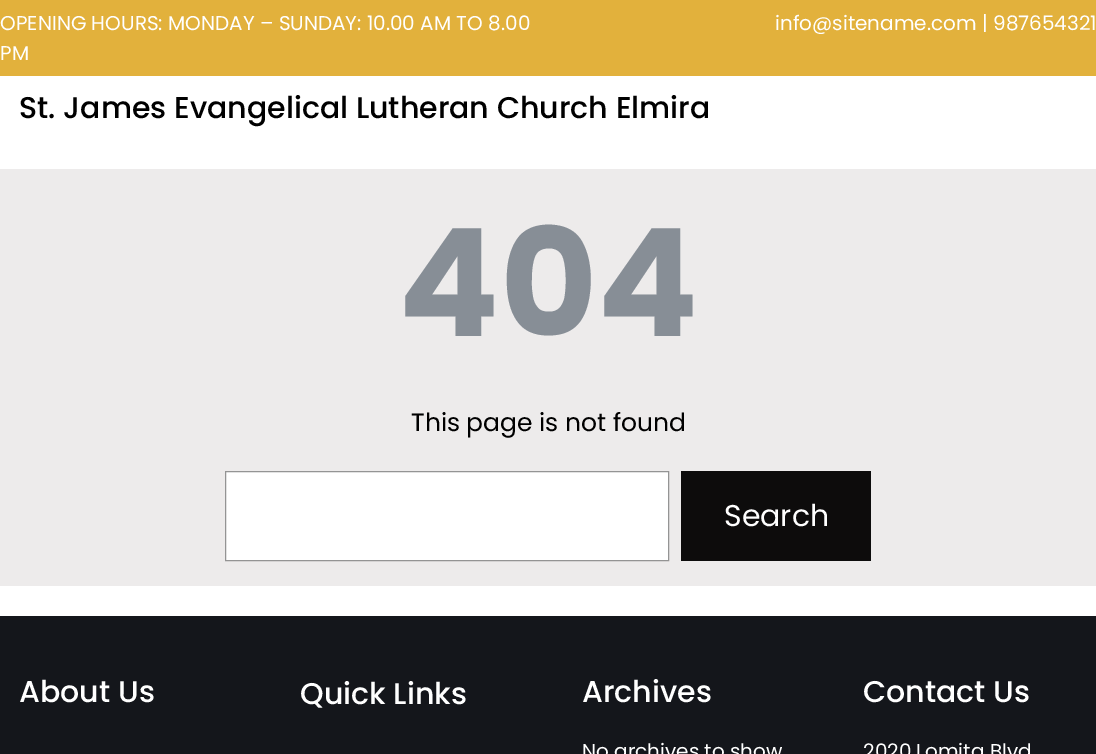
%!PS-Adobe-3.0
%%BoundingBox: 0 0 1096 754
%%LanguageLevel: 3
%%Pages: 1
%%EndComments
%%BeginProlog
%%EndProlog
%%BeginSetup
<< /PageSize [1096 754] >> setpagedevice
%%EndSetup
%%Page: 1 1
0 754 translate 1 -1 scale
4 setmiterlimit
1 setgray
0 0 1096 754 rectfill
0.886 0.694 0.235 setrgbcolor
0 0 1096 76 rectfill
0.929 0.922 0.922 setrgbcolor
0 169 1096 417 rectfill
1 setgray
newpath 225.5 471.5 moveto 668.5 471.5 lineto 668.5 560.5 lineto 225.5 560.5 lineto closepath gsave fill grestore
0.58 setgray
stroke
0.051 0.047 0.047 setrgbcolor
681 471 190 90 rectfill
0.078 0.086 0.106 setrgbcolor
0 616 1096 138 rectfill
/Poppins-Regular [20 0 0 -20 0 0] selectfont
1 setgray
0 30 moveto (OPENING HOURS: MONDAY – SUNDAY: 10.00 AM TO 8.00) show
0 60 moveto (PM) show
775 30 moveto (info@sitename.com | 987654321) show
/Poppins-Medium [30 0 0 -30 0 0] selectfont
0 setgray
19 118 moveto (St. James Evangelical Lutheran Church Elmira) show
/Poppins-Bold [150 0 0 -150 0 0] selectfont
0.529 0.557 0.588 setrgbcolor
398 336 moveto (404) show
/Poppins-Regular [25 0 0 -25 0 0] selectfont
0 setgray
411 431 moveto (This page is not found) show
/Poppins-Regular [30 0 0 -30 0 0] selectfont
1 setgray
724 526 moveto (Search) show
/Poppins-Medium [30 0 0 -30 0 0] selectfont
19 702 moveto (About Us) show
300 704 moveto (Quick Links) show
582 702 moveto (Archives) show
/Poppins-Regular [20 0 0 -20 0 0] selectfont
582 758 moveto (No archives to show) show
/Poppins-Medium [30 0 0 -30 0 0] selectfont
863 702 moveto (Contact Us) show
/Poppins-Regular [20 0 0 -20 0 0] selectfont
863 758 moveto (2020 Lomita Blvd) show
showpage
%%EOF
